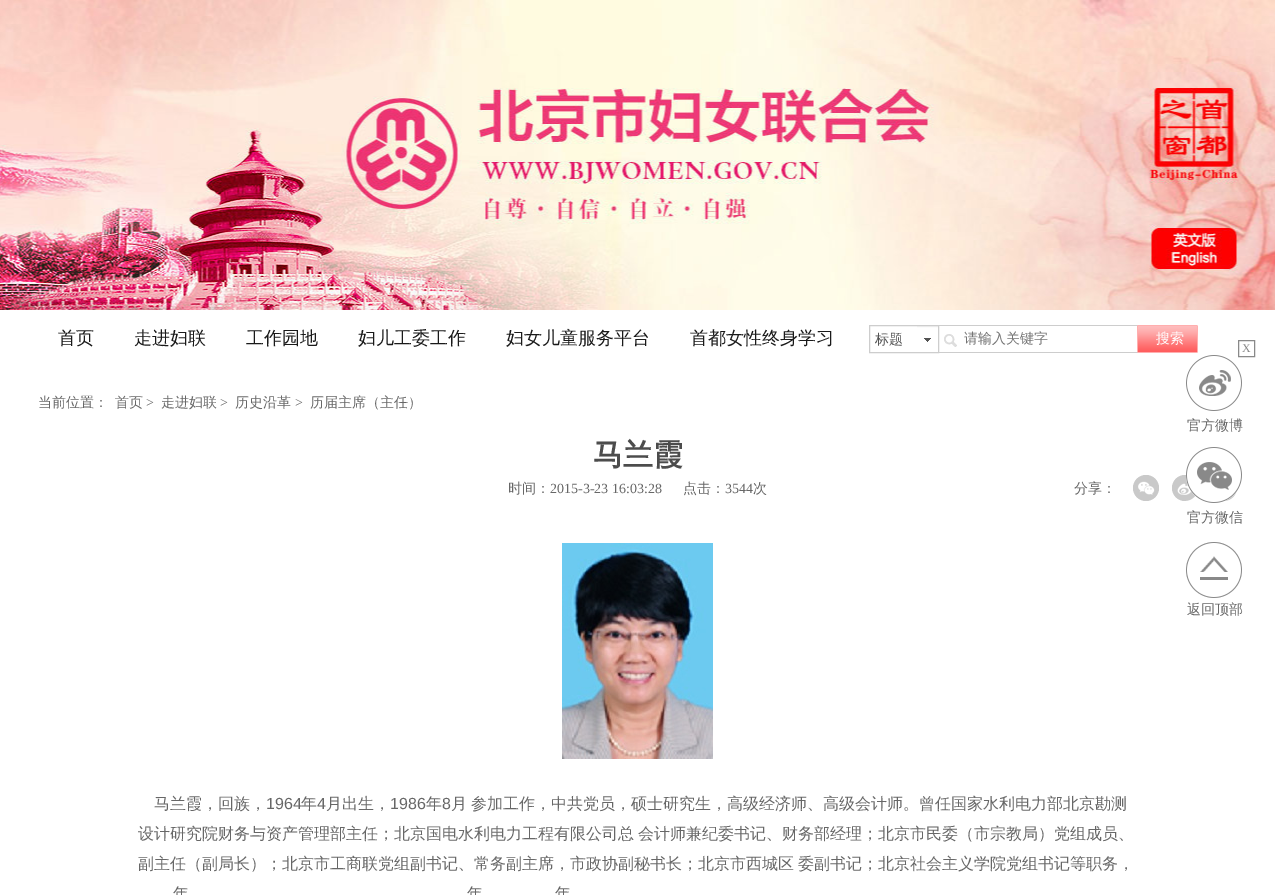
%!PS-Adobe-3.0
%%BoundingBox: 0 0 1275 895
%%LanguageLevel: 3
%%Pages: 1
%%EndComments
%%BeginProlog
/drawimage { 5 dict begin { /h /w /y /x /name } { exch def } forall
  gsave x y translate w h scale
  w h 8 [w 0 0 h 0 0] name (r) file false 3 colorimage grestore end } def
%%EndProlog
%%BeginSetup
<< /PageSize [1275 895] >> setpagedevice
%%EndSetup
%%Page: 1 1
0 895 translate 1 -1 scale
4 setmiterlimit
1 setgray
0 0 1275 895 rectfill
(images/1.raw) 0 0 1275 310 drawimage
(images/2.raw) 917 326 21 16 drawimage
0.804 setgray
869.5 325.5 69 27 rectstroke
(images/3.raw) 944 334 13 13 drawimage
939 325 200 1 rectfill
939 352 200 1 rectfill
(images/4.raw) 1137 325 61 28 drawimage
0.788 setgray
newpath 1146 488 13 0 360 arc closepath fill
(images/5.raw) 1138 481 17 14 drawimage
newpath 1185 488 13 0 360 arc closepath fill
(images/6.raw) 1177 483 15 12 drawimage
newpath 1224 488 13 0 360 arc closepath fill
(images/7.raw) 562 543 151 216 drawimage
(images/8.raw) 1186 355 56 243 drawimage
0.537 setgray
1238.5 340.5 16 16 rectstroke
/WenQuanYiZenHei-Medium [18 0 0 -18 0 0] selectfont
0.102 setgray
58 344 moveto (首页) show
134 344 moveto (走进妇联) show
246 344 moveto (工作园地) show
358 344 moveto (妇儿工委工作) show
506 344 moveto (妇女儿童服务平台) show
690 344 moveto (首都女性终身学习) show
/WenQuanYiZenHei-Medium [14 0 0 -14 0 0] selectfont
0.325 setgray
875 344 moveto (标题) show
0.459 setgray
964 343 moveto (请输入关键字) show
1 setgray
1156 343 moveto (搜索) show
0.404 setgray
38 407 moveto (当前位置：) show
115 407 moveto (首页) show
/LiberationSerif-Regular [14 0 0 -14 0 0] selectfont
146 407 moveto (>) show
/WenQuanYiZenHei-Medium [14 0 0 -14 0 0] selectfont
161 407 moveto (走进妇联) show
/LiberationSerif-Regular [14 0 0 -14 0 0] selectfont
220 407 moveto (>) show
/WenQuanYiZenHei-Medium [14 0 0 -14 0 0] selectfont
235 407 moveto (历史沿革) show
/LiberationSerif-Regular [14 0 0 -14 0 0] selectfont
295 407 moveto (>) show
/WenQuanYiZenHei-Medium [14 0 0 -14 0 0] selectfont
310 407 moveto (历届主席（主任）) show
/WenQuanYiZenHei-Bold [30 0 0 -30 0 0] selectfont
0.298 setgray
593 465 moveto (马兰霞) show
/WenQuanYiZenHei-Medium [14 0 0 -14 0 0] selectfont
0.404 setgray
508 493 moveto (时间：) show
/LiberationSerif-Regular [14 0 0 -14 0 0] selectfont
550 493 moveto (2015-3-23 16:03:28) show
/WenQuanYiZenHei-Medium [14 0 0 -14 0 0] selectfont
683 493 moveto (点击：) show
/LiberationSerif-Regular [14 0 0 -14 0 0] selectfont
725 493 moveto (3544) show
/WenQuanYiZenHei-Medium [14 0 0 -14 0 0] selectfont
753 493 moveto (次) show
1074 493 moveto (分享：) show
/WenQuanYiZenHei-Medium [16 0 0 -16 0 0] selectfont
154 809 moveto (马兰霞，回族，) show
/LiberationSans-Regular [16 0 0 -16 0 0] selectfont
266 809 moveto (1964) show
/WenQuanYiZenHei-Medium [16 0 0 -16 0 0] selectfont
301 809 moveto (年) show
/LiberationSans-Regular [16 0 0 -16 0 0] selectfont
317 809 moveto (4) show
/WenQuanYiZenHei-Medium [16 0 0 -16 0 0] selectfont
326 809 moveto (月出生，) show
/LiberationSans-Regular [16 0 0 -16 0 0] selectfont
390 809 moveto (1986) show
/WenQuanYiZenHei-Medium [16 0 0 -16 0 0] selectfont
426 809 moveto (年) show
/LiberationSans-Regular [16 0 0 -16 0 0] selectfont
442 809 moveto (8) show
/WenQuanYiZenHei-Medium [16 0 0 -16 0 0] selectfont
451 809 moveto -1 0 32 (月 参加工作，中共党员，硕士研究生，高级经济师、高级会计师。曾任国家水利电力部北京勘测) widthshow
138 839 moveto -1 0 32 (设计研究院财务与资产管理部主任；北京国电水利电力工程有限公司总 会计师兼纪委书记、财务部经理；北京市民委（市宗教局）党组成员、) widthshow
138 869 moveto -1 0 32 (副主任（副局长）；北京市工商联党组副书记、常务副主席，市政协副秘书长；北京市西城区 委副书记；北京社会主义学院党组书记等职务，) widthshow
173 899 moveto (年) show
467 899 moveto (年) show
555 899 moveto (年) show
/LiberationSerif-Regular [12 0 0 -12 0 0] selectfont
0.537 setgray
1242 352 moveto (X) show
/WenQuanYiZenHei-Medium [14 0 0 -14 0 0] selectfont
0.404 setgray
1187 430 moveto (官方微博) show
1187 522 moveto (官方微信) show
1187 614 moveto (返回顶部) show
showpage
%%EOF
